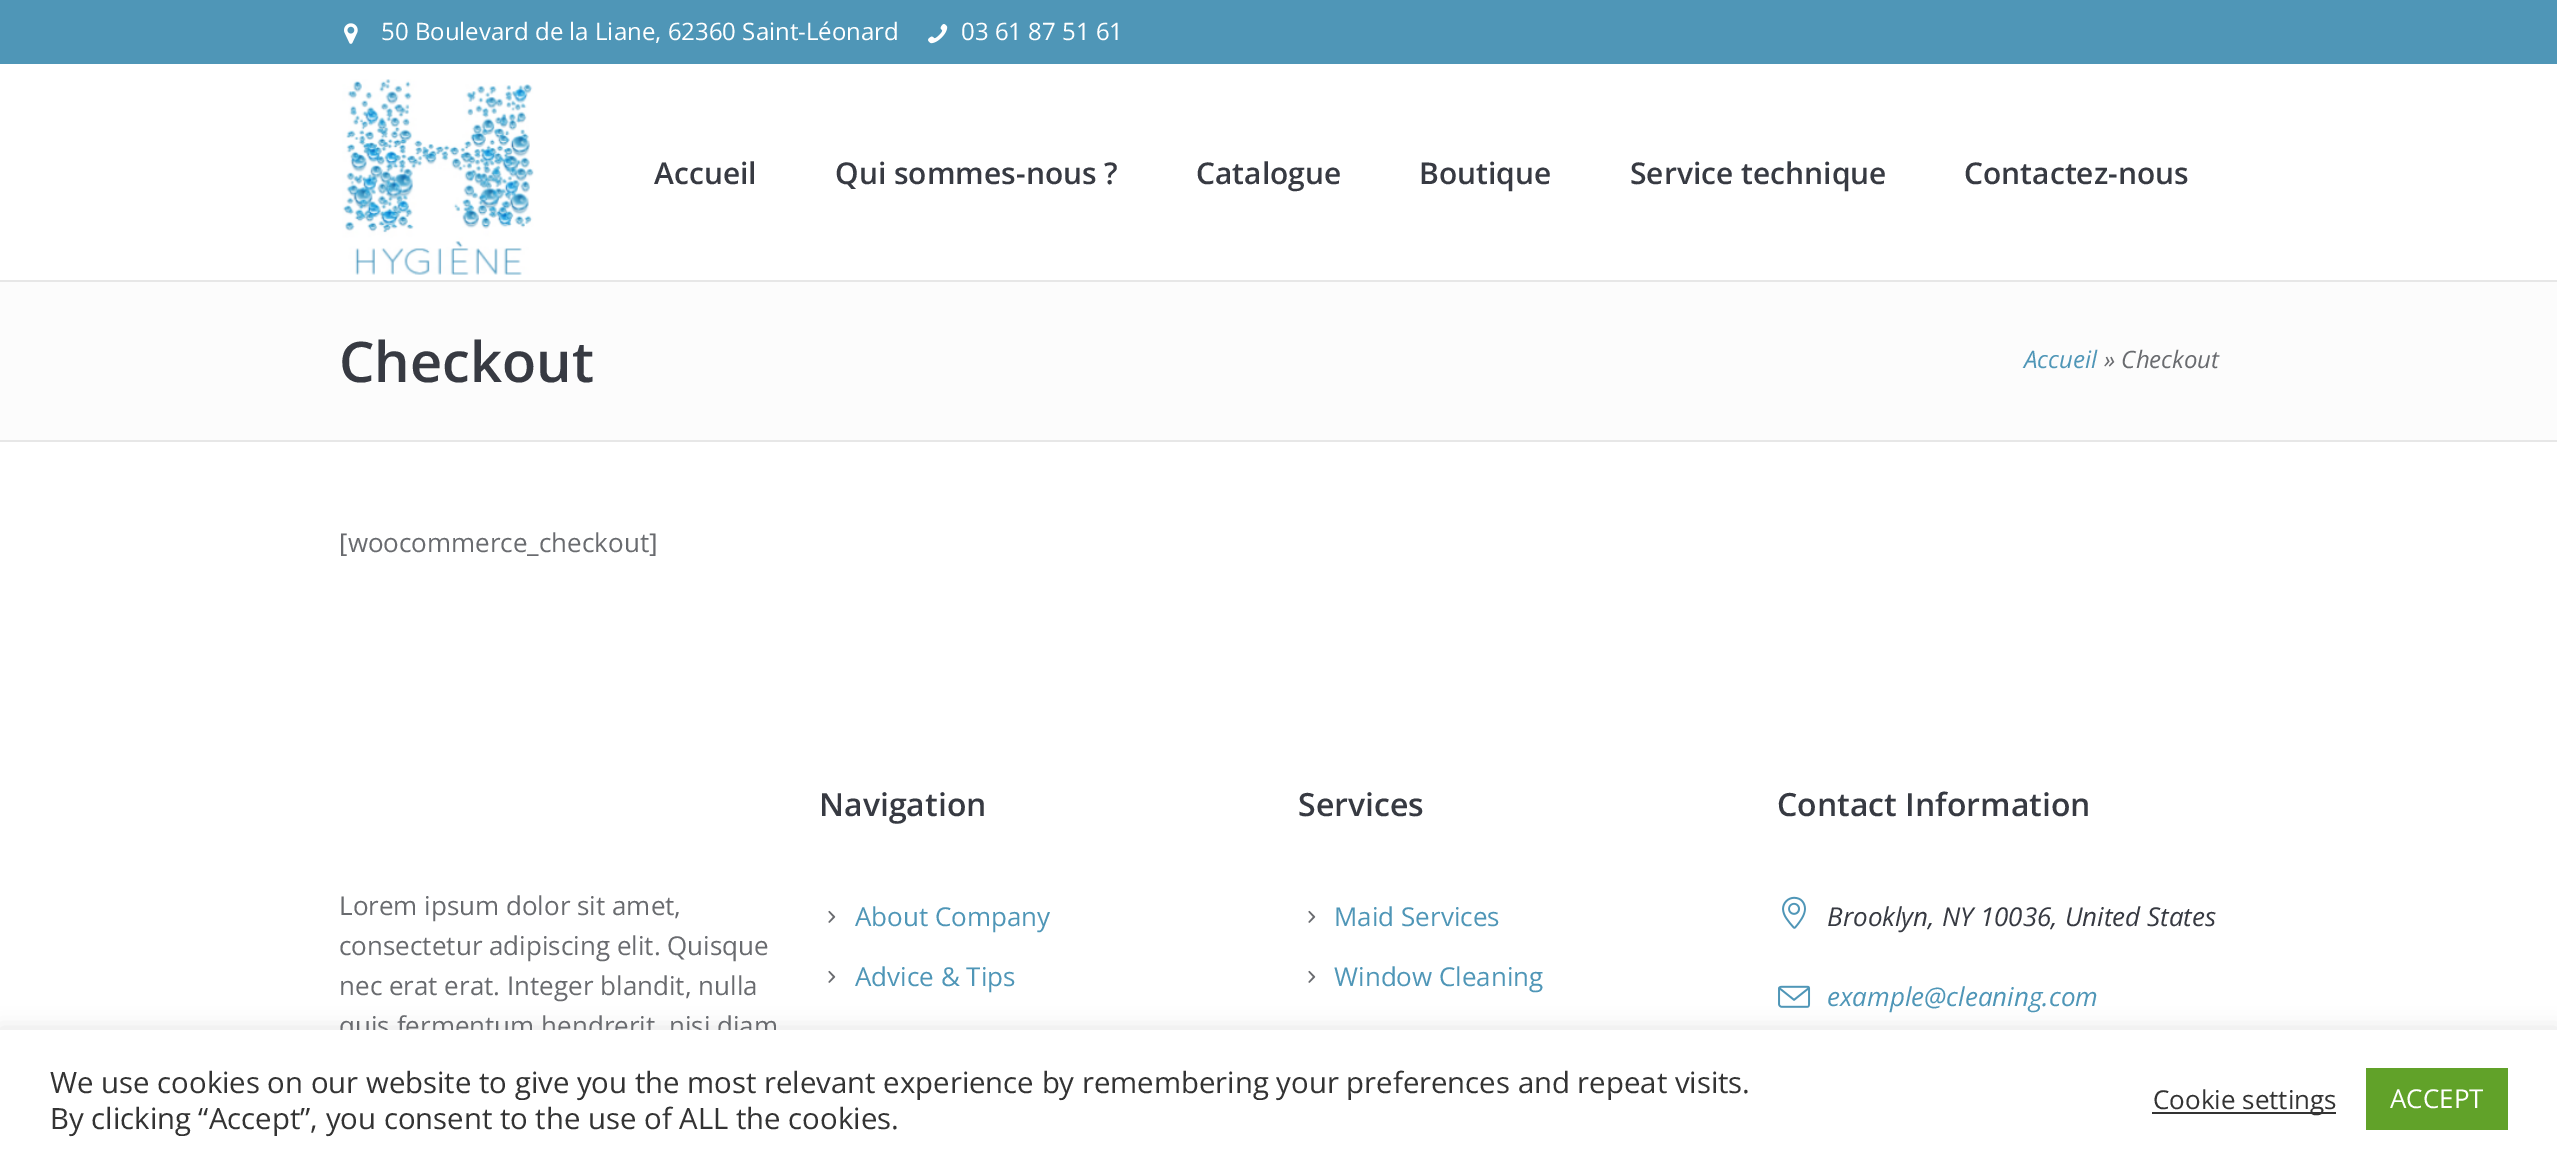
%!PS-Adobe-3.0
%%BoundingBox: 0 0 2557 1168
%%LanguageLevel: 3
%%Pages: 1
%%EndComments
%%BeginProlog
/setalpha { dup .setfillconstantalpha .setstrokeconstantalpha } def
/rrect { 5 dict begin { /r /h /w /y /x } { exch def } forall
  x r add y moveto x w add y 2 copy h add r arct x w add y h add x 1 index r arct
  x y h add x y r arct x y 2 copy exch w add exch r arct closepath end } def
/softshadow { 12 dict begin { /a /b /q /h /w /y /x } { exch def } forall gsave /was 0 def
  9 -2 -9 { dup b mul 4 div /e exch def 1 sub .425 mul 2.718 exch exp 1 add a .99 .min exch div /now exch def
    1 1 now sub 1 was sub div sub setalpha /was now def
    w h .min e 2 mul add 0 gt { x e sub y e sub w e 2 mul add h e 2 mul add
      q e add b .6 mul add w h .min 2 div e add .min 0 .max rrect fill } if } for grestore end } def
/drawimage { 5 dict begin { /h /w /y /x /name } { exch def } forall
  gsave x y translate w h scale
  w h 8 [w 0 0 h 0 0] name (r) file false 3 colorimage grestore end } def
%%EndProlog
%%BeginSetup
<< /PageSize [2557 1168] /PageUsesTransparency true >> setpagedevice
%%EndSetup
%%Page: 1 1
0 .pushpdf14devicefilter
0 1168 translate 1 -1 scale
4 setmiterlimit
1 setgray
0 0 2557 1168 rectfill
0.906 setgray
0 280 2557 2 rectfill
0.31 0.588 0.718 setrgbcolor
0 0 2557 64 rectfill
(images/1.raw) 344 23 14 21 drawimage
(images/2.raw) 928 24 20 20 drawimage
(images/3.raw) 342 79 192 196 drawimage
0.988 setgray
0 282 2557 158 rectfill
0.906 setgray
0 440 2557 2 rectfill
(images/4.raw) 828 910 8 13 drawimage
(images/4.raw) 828 970 8 13 drawimage
(images/4.raw) 1308 910 8 13 drawimage
(images/4.raw) 1308 970 8 13 drawimage
(images/5.raw) 1782 896 24 33 drawimage
(images/6.raw) 1778 985 33 23 drawimage
0.675 0.671 0.671 setrgbcolor
0 1028 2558 138 0 10 0.3 softshadow
/OpenSans-Regular [24 0 0 -24 0 0] selectfont
1 setgray
381 40 moveto (50 Boulevard de la Liane, 62360 Saint-Léonard) show
961 40 moveto (03 61 87 51 61) show
/OpenSans-SemiBold [30 0 0 -30 0 0] selectfont
0.216 0.227 0.259 setrgbcolor
654 184 moveto (Accueil) show
835 184 moveto (Qui sommes-nous ?) show
1196 184 moveto (Catalogue) show
1419 184 moveto (Boutique) show
1630 184 moveto (Service technique) show
1964 184 moveto (Contactez-nous) show
/OpenSans-SemiBold [56 0 0 -56 0 0] selectfont
339 382 moveto (Checkout) show
/OpenSans-Italic [24 0 0 -24 0 0] selectfont
0.31 0.588 0.718 setrgbcolor
2024 368 moveto (Accueil) show
0.412 0.42 0.435 setrgbcolor
2104 368 moveto (» Checkout) show
/OpenSans-Regular [26 0 0 -26 0 0] selectfont
339 552 moveto ([woocommerce_checkout]) show
339 915 moveto (Lorem ipsum dolor sit amet,) show
339 955 moveto (consectetur adipiscing elit. Quisque) show
339 995 moveto (nec erat erat. Integer blandit, nulla) show
339 1035 moveto (quis fermentum hendrerit, nisi diam) show
/OpenSans-SemiBold [32 0 0 -32 0 0] selectfont
0.216 0.227 0.259 setrgbcolor
819 816 moveto (Navigation) show
/OpenSans-Regular [26 0 0 -26 0 0] selectfont
0.31 0.588 0.718 setrgbcolor
855 926 moveto (About Company) show
855 986 moveto (Advice & Tips) show
/OpenSans-SemiBold [32 0 0 -32 0 0] selectfont
0.216 0.227 0.259 setrgbcolor
1298 816 moveto (Services) show
/OpenSans-Regular [26 0 0 -26 0 0] selectfont
0.31 0.588 0.718 setrgbcolor
1334 926 moveto (Maid Services) show
1334 986 moveto (Window Cleaning) show
/OpenSans-SemiBold [32 0 0 -32 0 0] selectfont
0.216 0.227 0.259 setrgbcolor
1777 816 moveto (Contact Information) show
/OpenSans-Italic [26 0 0 -26 0 0] selectfont
1827 926 moveto (Brooklyn, NY 10036, United States) show
0.31 0.588 0.718 setrgbcolor
1827 1006 moveto (example@cleaning.com) show
1 setgray
0 1030 2557 138 rectfill
/OpenSans-Regular [29.33 0 0 -29.33 0 0] selectfont
0.2 setgray
50 1093 moveto (We use cookies on our website to give you the most relevant experience by remembering your preferences and repeat visits.) show
50 1129 moveto (By clicking “Accept”, you consent to the use of ALL the cookies.) show
2152 1112 184 2 rectfill
/OpenSans-Regular [26 0 0 -26 0 0] selectfont
2153 1109 moveto (Cookie settings) show
0.38 0.635 0.161 setrgbcolor
2366 1068 142 62 rectfill
1 setgray
2390 1108 moveto (ACCEPT) show
.poppdf14devicefilter showpage
%%EOF
